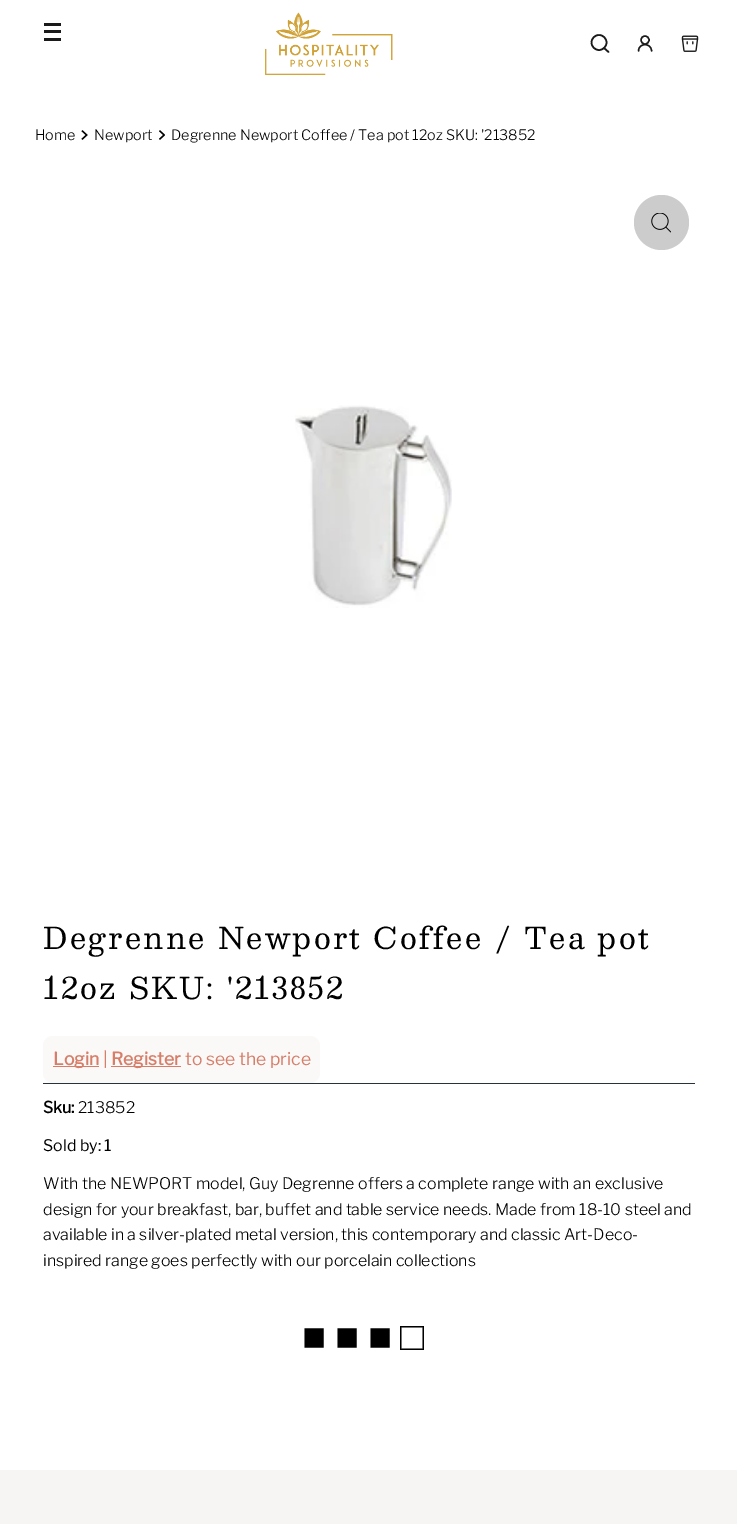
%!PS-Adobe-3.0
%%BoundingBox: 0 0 737 1524
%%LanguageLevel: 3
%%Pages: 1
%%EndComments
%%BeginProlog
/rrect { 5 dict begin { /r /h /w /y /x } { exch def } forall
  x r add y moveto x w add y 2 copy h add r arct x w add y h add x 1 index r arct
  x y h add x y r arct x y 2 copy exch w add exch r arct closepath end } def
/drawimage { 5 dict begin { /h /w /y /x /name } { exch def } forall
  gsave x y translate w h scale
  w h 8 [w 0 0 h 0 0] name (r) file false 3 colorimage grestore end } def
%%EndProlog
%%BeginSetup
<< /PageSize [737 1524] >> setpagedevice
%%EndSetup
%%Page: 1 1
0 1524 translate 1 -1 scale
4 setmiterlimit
1 setgray
0 0 737 1524 rectfill
0.102 setgray
44 23 17 3 rectfill
44 30 17 3 rectfill
44 38 17 3 rectfill
(images/1.raw) 265 12 128 63 drawimage
1.6 setlinewidth
newpath 599 42.5 7.5 0 360 arc closepath stroke
1 setlinecap
newpath 608.5 52 moveto 604 48 lineto stroke
1.4 setlinewidth
0 setlinecap
newpath 645 40 4 0 360 arc closepath stroke
1 setlinecap
newpath 638.5 51 moveto 638.5 42.5 651.5 42.5 651.5 51 curveto stroke
(images/2.raw) 681 35 18 17 drawimage
(images/3.raw) 81 130 7 10 drawimage
(images/4.raw) 159 130 6 10 drawimage
0.8 setgray
newpath 661.5 222.5 27.5 0 360 arc closepath fill
(images/5.raw) 651 213 20 20 drawimage
(images/6.raw) 295 405 157 203 drawimage
0.157 0.196 0.235 setrgbcolor
43 1083 652 1 rectfill
0.98 0.976 0.969 setrgbcolor
43 1036 277 47 10 rrect fill
0.843 0.494 0.416 setrgbcolor
53 1066 46 1 rectfill
111 1066 70 1 rectfill
0.965 0.961 0.953 setrgbcolor
0 1470 737 54 rectfill
/LibreFranklin-Light [14.35 0 0 -14.35 0 0] selectfont
0 setgray
35 140 moveto (Home) show
94 140 moveto (Newport) show
171 140 moveto (Degrenne Newport Coffee / Tea pot 12oz SKU: '213852) show
/Besley-Regular [29.75 0 0 -29.75 0 0] selectfont
43 949 moveto 2.25 0 (Degrenne Newport Coffee / Tea pot) ashow
43 999 moveto 2.25 0 (12oz SKU: '213852) ashow
/LibreFranklin-Bold [17.5 0 0 -17.5 0 0] selectfont
0.843 0.494 0.416 setrgbcolor
53 1065 moveto (Login) show
/LibreFranklin-Regular [17.5 0 0 -17.5 0 0] selectfont
103 1065 moveto (|) show
/LibreFranklin-Bold [17.5 0 0 -17.5 0 0] selectfont
111 1065 moveto (Register) show
/LibreFranklin-Regular [17.5 0 0 -17.5 0 0] selectfont
185 1065 moveto (to see the price) show
/LibreFranklin-Bold [15.95 0 0 -15.95 0 0] selectfont
0 setgray
43 1113 moveto (Sku:) show
/LibreFranklin-Light [15.95 0 0 -15.95 0 0] selectfont
78 1113 moveto (213852) show
/LibreFranklin-Regular [15.95 0 0 -15.95 0 0] selectfont
43 1151 moveto (Sold by: 1) show
/LibreFranklin-Light [15.95 0 0 -15.95 0 0] selectfont
43 1189 moveto (With the NEWPORT model, Guy Degrenne offers a complete range with an exclusive) show
43 1215 moveto (design for your breakfast, bar, buffet and table service needs. Made from 18-10 steel and) show
43 1240 moveto (available in a silver-plated metal version, this contemporary and classic Art-Deco-) show
43 1266 moveto (inspired range goes perfectly with our porcelain collections) show
/LiberationSans-Regular [40 0 0 -40 0 0] selectfont
302 1350 moveto -2.5 0 32 (■ ■ ■ □) widthshow
showpage
%%EOF
